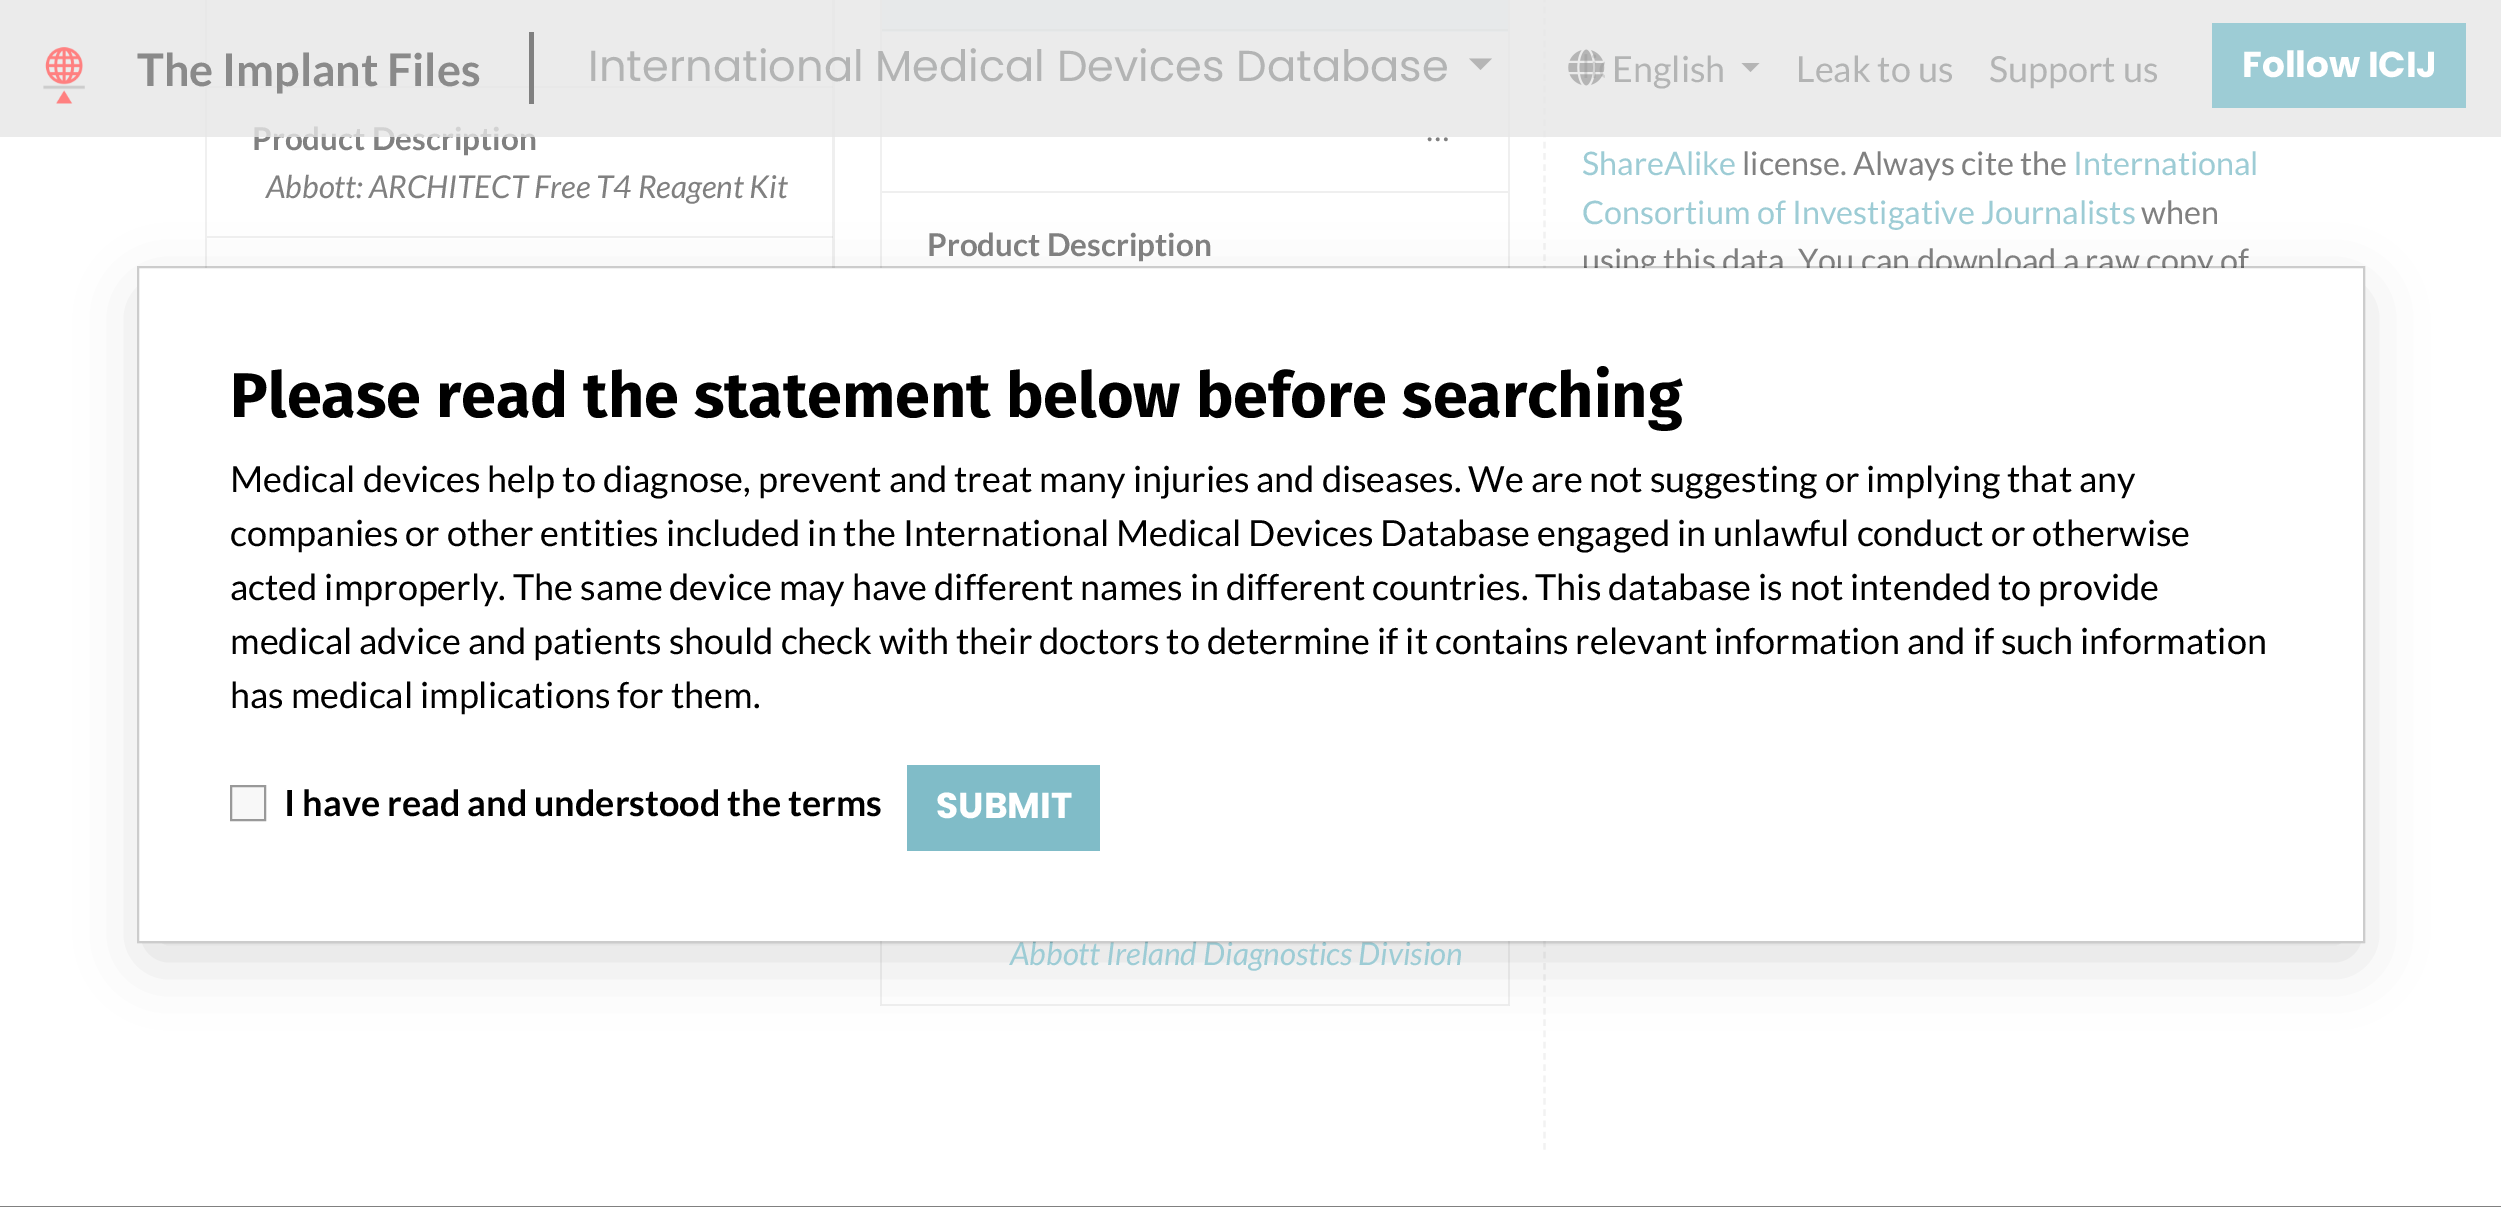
%!PS-Adobe-3.0
%%BoundingBox: 0 0 2501 1207
%%LanguageLevel: 3
%%Pages: 1
%%EndComments
%%BeginProlog
/setalpha { dup .setfillconstantalpha .setstrokeconstantalpha } def
/rrect { 5 dict begin { /r /h /w /y /x } { exch def } forall
  x r add y moveto x w add y 2 copy h add r arct x w add y h add x 1 index r arct
  x y h add x y r arct x y 2 copy exch w add exch r arct closepath end } def
/softshadow { 12 dict begin { /a /b /q /h /w /y /x } { exch def } forall gsave /was 0 def
  9 -2 -9 { dup b mul 4 div /e exch def 1 sub .425 mul 2.718 exch exp 1 add a .99 .min exch div /now exch def
    1 1 now sub 1 was sub div sub setalpha /was now def
    w h .min e 2 mul add 0 gt { x e sub y e sub w e 2 mul add h e 2 mul add
      q e add b .6 mul add w h .min 2 div e add .min 0 .max rrect fill } if } for grestore end } def
/drawimage { 5 dict begin { /h /w /y /x /name } { exch def } forall
  gsave x y translate w h scale
  w h 8 [w 0 0 h 0 0] name (r) file false 3 colorimage grestore end } def
%%EndProlog
%%BeginSetup
<< /PageSize [2501 1207] /PageUsesTransparency true >> setpagedevice
%%EndSetup
%%Page: 1 1
0 .pushpdf14devicefilter
0 1207 translate 1 -1 scale
4 setmiterlimit
1 setgray
0 0 2501 1207 rectfill
0.937 setgray
newpath 835 -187 moveto 835 342 lineto 832 340 lineto 832 -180 lineto closepath fill
0.12 setalpha
0.502 setgray
newpath 205 342 moveto 205 -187 lineto 207 -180 lineto 207 340 lineto closepath fill
207 86 626 2 rectfill
207 236 626 2 rectfill
1 setalpha
0.937 setgray
newpath 1510 -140 moveto 1510 542 lineto 1508 540 lineto 1508 -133 lineto closepath fill
0.12 setalpha
0.502 setgray
newpath 880 542 moveto 880 -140 lineto 882 -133 lineto 882 540 lineto closepath fill
1 setalpha
0.922 0.969 0.976 setrgbcolor
882 0 626 32 rectfill
0.839 0.875 0.882 setrgbcolor
882 29 626 2 rectfill
0.937 setgray
882 191 626 2 rectfill
0.12 setalpha
0.502 setgray
newpath 1510 580 moveto 1510 1006 lineto 1508 1004 lineto 1508 587 lineto closepath fill
newpath 1510 1006 moveto 880 1006 lineto 882 1004 lineto 1508 1004 lineto closepath fill
newpath 880 1006 moveto 880 580 lineto 882 587 lineto 882 1004 lineto closepath fill
1 setalpha
0.949 setgray
2.2 setlinewidth
[6.75 4.5] 0 setdash
newpath 1544.5 -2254.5 moveto 1544.5 1152 lineto stroke
0.502 setgray
0 1206 2501 1 rectfill
gsave
newpath 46 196 moveto 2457 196 lineto 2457 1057 lineto 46 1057 lineto closepath 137 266 moveto 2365 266 lineto 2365 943 lineto 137 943 lineto closepath eoclip newpath
0 setgray
149 299 2205 655 0 34 0.15 softshadow
grestore
/Lato-Bold [31.5 0 0 -31.5 0 0] selectfont
252 150 moveto (Product Description) show
0.8 setalpha
0.902 setgray
0 0 2501 137 rectfill
1 setalpha
(images/2.raw) 1568 49 37 37 drawimage
0.5 setalpha
0.502 setgray
newpath 1741.5 63 moveto 1759.5 63 lineto 1750.5 72 lineto closepath fill
/Lato-Regular [36 0 0 -36 0 0] selectfont
1 setalpha
0.702 0.706 0.706 setrgbcolor
1612 82 moveto (English) show
0.71 setgray
newpath 1469 58.5 moveto 1492 58.5 lineto 1480.5 70 lineto closepath fill
/Poppins-Regular [43.25 0 0 -43.25 0 0] selectfont
0.702 0.706 0.706 setrgbcolor
588 81 moveto (International Medical Devices Database) show
0.502 setgray
529 32 5 72 rectfill
/Lato-Bold [45 0 0 -45 0 0] selectfont
0.541 setgray
137 86 moveto (The Implant Files) show
(images/1.raw) 43 47 42 57 drawimage
0.616 0.8 0.835 setrgbcolor
2212 23 254 85 rectfill
/Poppins-Bold [36 0 0 -36 0 0] selectfont
1 setgray
2242 77 moveto (Follow ICIJ) show
/Lato-Regular [36 0 0 -36 0 0] selectfont
0.702 0.706 0.706 setrgbcolor
1989 82 moveto (Support us) show
1796 82 moveto (Leak to us) show
/Lato-Italic [31.5 0 0 -31.5 0 0] selectfont
0.502 setgray
266 198 moveto (Abbott: ARCHITECT Free T4 Reagent Kit) show
1427 141 moveto (…) show
/Lato-Bold [31.5 0 0 -31.5 0 0] selectfont
927 256 moveto (Product Description) show
/Lato-Italic [31.5 0 0 -31.5 0 0] selectfont
0.616 0.8 0.835 setrgbcolor
1010 965 moveto (Abbott Ireland Diagnostics Division) show
/Lato-Regular [32.4 0 0 -32.4 0 0] selectfont
1582 175 moveto (ShareAlike) show
0.502 setgray
1742 175 moveto (license. Always cite the) show
0.616 0.8 0.835 setrgbcolor
2073 175 moveto (International) show
1582 224 moveto (Consortium of Investigative Journalists) show
0.502 setgray
2141 224 moveto (when) show
1582 272 moveto (using this data. You can download a raw copy of) show
1 setgray
205 268 2039 673 rectfill
0.2 setalpha
0 setgray
2 setlinewidth
[] 0 setdash
138 267 2226 675 rectstroke
/FiraSans-Bold [63 0 0 -63 0 0] selectfont
1 setalpha
230 417 moveto (Please read the statement below before searching) show
/Lato-Regular [36 0 0 -36 0 0] selectfont
230 492 moveto (Medical devices help to diagnose, prevent and treat many injuries and diseases. We are not suggesting or implying that any) show
230 546 moveto (companies or other entities included in the International Medical Devices Database engaged in unlawful conduct or otherwise) show
230 600 moveto (acted improperly. The same device may have different names in different countries. This database is not intended to provide) show
230 654 moveto (medical advice and patients should check with their doctors to determine if it contains relevant information and if such information) show
230 708 moveto (has medical implications for them.) show
0.973 setgray
newpath 231 786 moveto 265 786 lineto 265 820 lineto 231 820 lineto closepath gsave fill grestore
0.6 setgray
stroke
/Lato-Bold [36 0 0 -36 0 0] selectfont
0 setgray
284 816 moveto (I have read and understood the terms) show
0.502 0.737 0.784 setrgbcolor
907 765 193 86 rectfill
/Poppins-Bold [36 0 0 -36 0 0] selectfont
1 setgray
936 818 moveto (SUBMIT) show
.poppdf14devicefilter showpage
%%EOF
